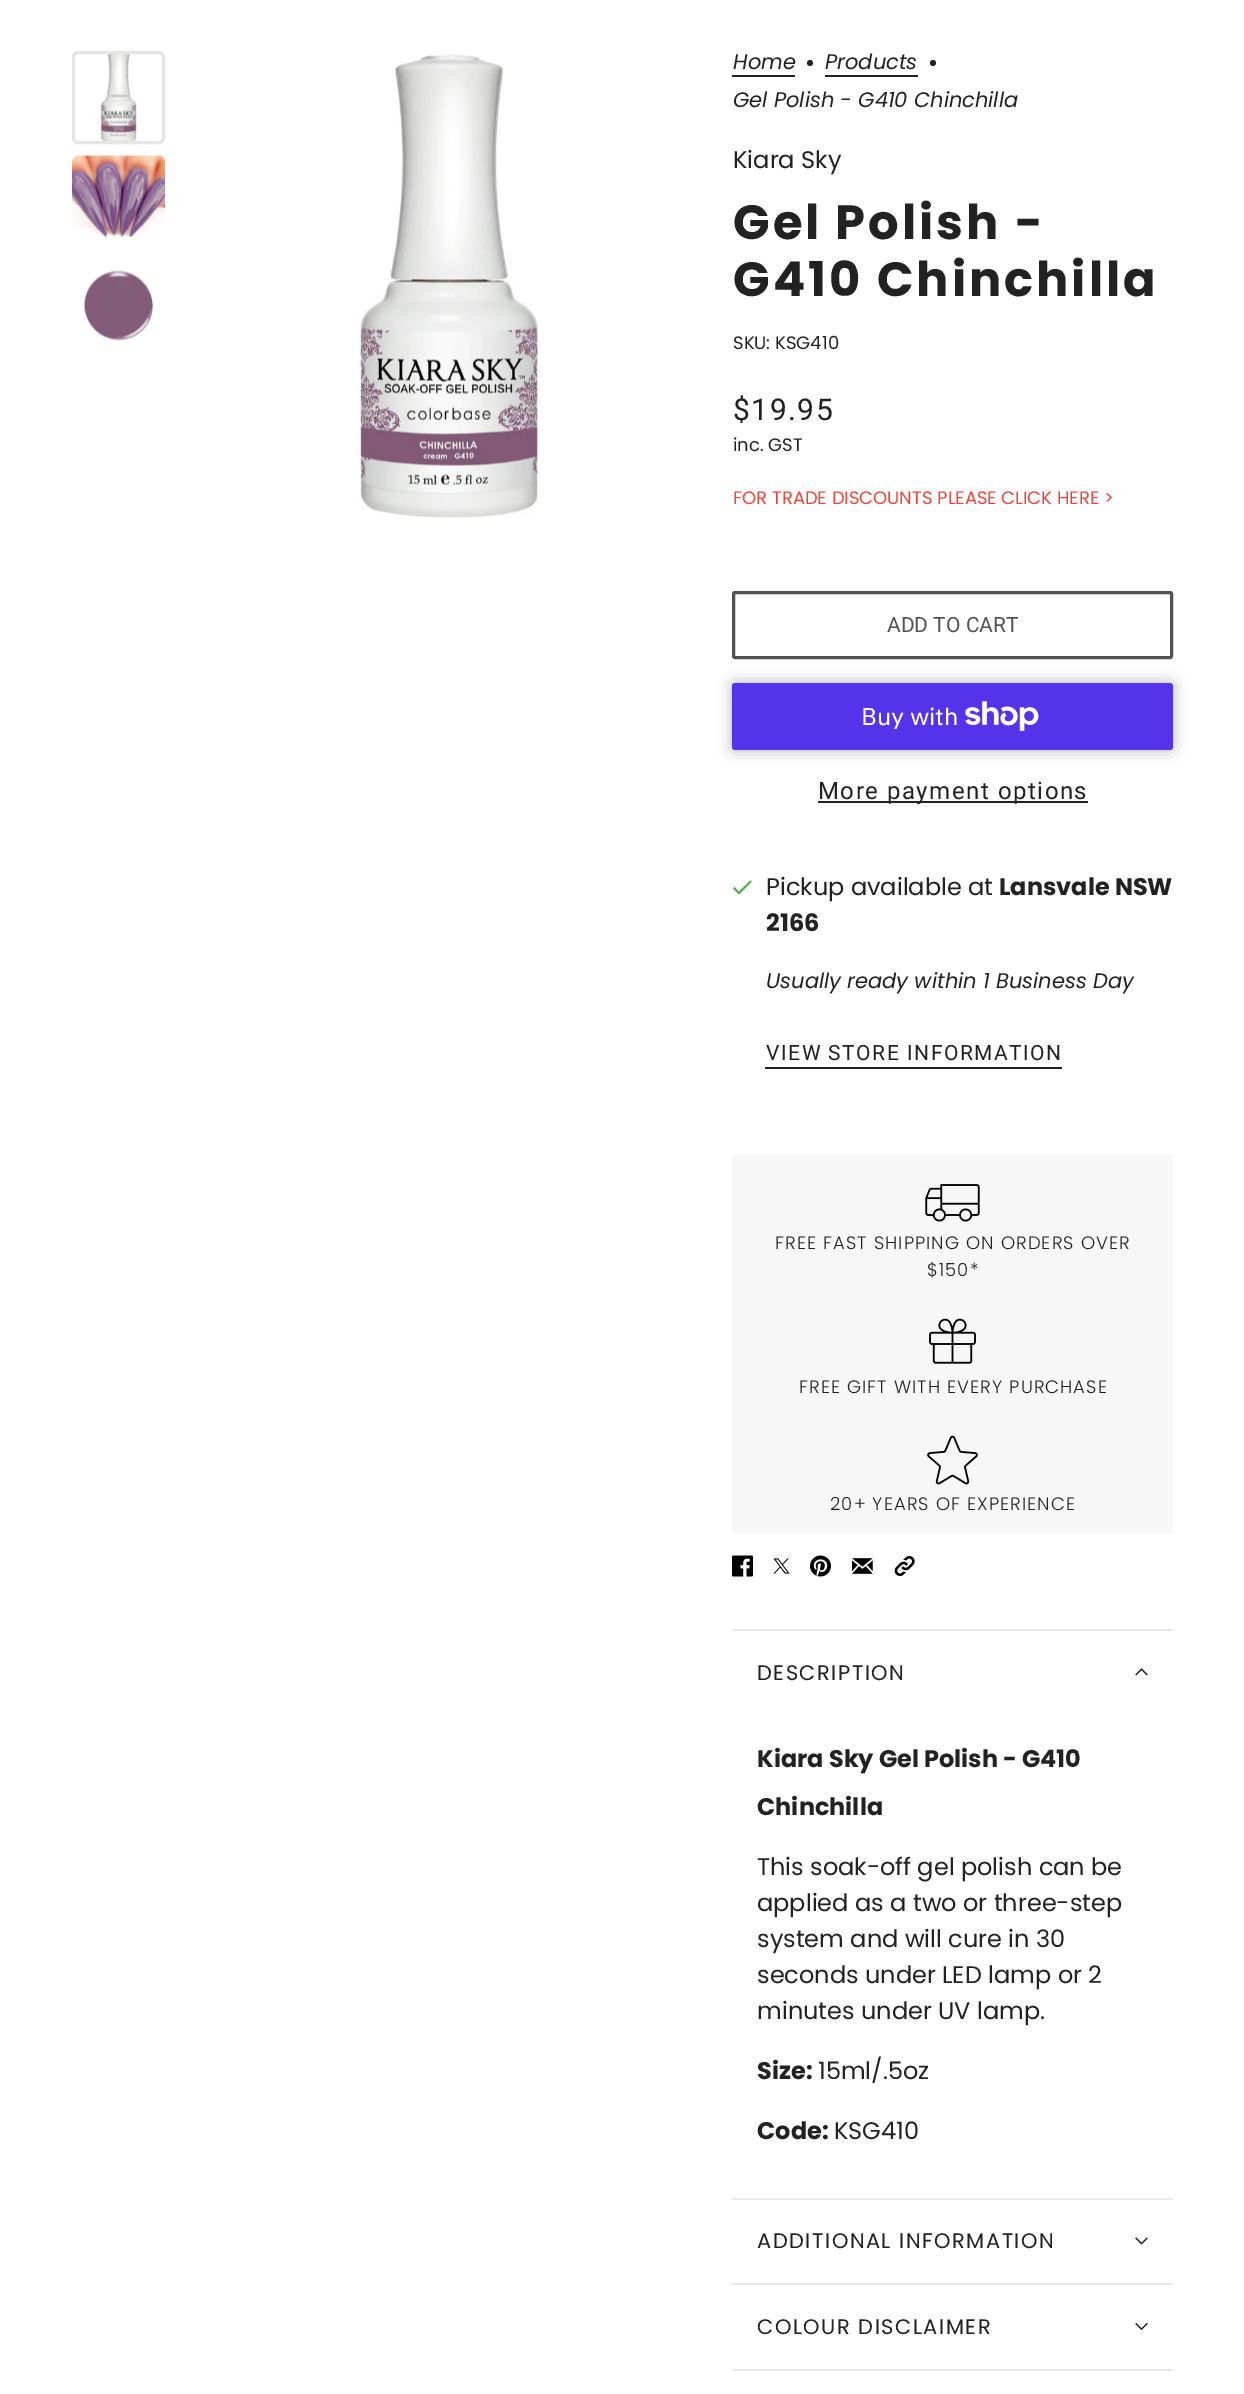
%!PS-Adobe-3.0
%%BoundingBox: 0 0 1244 2394
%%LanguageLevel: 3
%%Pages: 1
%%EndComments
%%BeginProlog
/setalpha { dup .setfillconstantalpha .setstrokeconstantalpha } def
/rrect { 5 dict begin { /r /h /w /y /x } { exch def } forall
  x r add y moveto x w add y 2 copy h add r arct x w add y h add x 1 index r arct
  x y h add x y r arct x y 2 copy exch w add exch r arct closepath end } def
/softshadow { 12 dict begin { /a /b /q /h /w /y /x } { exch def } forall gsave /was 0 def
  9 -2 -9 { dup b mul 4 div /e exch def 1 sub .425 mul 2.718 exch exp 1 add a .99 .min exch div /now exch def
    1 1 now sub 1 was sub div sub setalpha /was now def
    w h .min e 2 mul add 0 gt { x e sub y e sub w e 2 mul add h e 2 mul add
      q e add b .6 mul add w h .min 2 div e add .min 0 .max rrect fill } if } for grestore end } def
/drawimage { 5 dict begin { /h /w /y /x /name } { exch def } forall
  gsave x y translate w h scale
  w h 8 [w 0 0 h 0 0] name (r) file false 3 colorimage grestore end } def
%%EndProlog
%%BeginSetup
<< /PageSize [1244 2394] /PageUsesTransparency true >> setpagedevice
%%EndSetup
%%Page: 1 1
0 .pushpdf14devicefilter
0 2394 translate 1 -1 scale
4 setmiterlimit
1 setgray
0 0 1244 2394 rectfill
(images/1.raw) 100 54 39 87 drawimage
0.902 setgray
3 setlinewidth
73.5 52.5 90 90 4.5 rrect stroke
(images/2.raw) 72 155 93 84 drawimage
(images/3.raw) 84 270 69 71 drawimage
(images/4.raw) 358 54 183 464 drawimage
0.133 setgray
732 75 63 2 rectfill
newpath 810 63 3 0 360 arc closepath fill
825 75 93 2 rectfill
newpath 933 63 3 0 360 arc closepath fill
0.322 setgray
733.5 592.5 438 65 1.5 rrect stroke
0 setgray
732 683 441 67 3 7.5 0.3 softshadow
0.329 0.2 0.922 setrgbcolor
732 683 441 67 3 rrect fill
(images/5.raw) 965 701 74 30 drawimage
0.133 setgray
818 801 270 2 rectfill
0.298 0.686 0.314 setrgbcolor
newpath 739 891.5 moveto 734.5 887 lineto 733 888.5 lineto 739 894.5 lineto 751.5 882 lineto 750.5 880.5 lineto closepath fill
0.133 setgray
765 1067 297 2 rectfill
0.969 setgray
732 1155 441 378 rectfill
(images/6.raw) 925 1184 55 38 drawimage
(images/7.raw) 929 1318 47 46 drawimage
(images/8.raw) 927 1435 51 50 drawimage
(images/9.raw) 732 1555 21 22 drawimage
(images/10.raw) 773 1558 17 16 drawimage
(images/11.raw) 810 1555 21 22 drawimage
(images/12.raw) 852 1558 21 16 drawimage
(images/13.raw) 894 1556 21 20 drawimage
0.914 setgray
732 1629 441 2 rectfill
732 2198 441 2 rectfill
(images/14.raw) 1135 1668 13 8 drawimage
732 2283 441 2 rectfill
(images/15.raw) 1135 2237 13 8 drawimage
732 2369 441 2 rectfill
(images/16.raw) 1135 2322 13 9 drawimage
/Poppins-Italic [21 0 0 -21 0 0] selectfont
0.133 setgray
733 69 moveto (Home) show
825 69 moveto (Products) show
733 107 moveto (Gel Polish - G410 Chinchilla) show
/Poppins-Regular [24 0 0 -24 0 0] selectfont
733 168 moveto (Kiara Sky) show
/Poppins-Bold [48 0 0 -48 0 0] selectfont
733 239 moveto 3 0 (Gel Polish -) ashow
733 296 moveto 3 0 (G410 Chinchilla) ashow
/Poppins-Regular [18 0 0 -18 0 0] selectfont
733 349 moveto (SKU: KSG410) show
/Roboto-Regular [30 0 0 -30 0 0] selectfont
733 420 moveto 1.5 0 ($19.95) ashow
/Poppins-Regular [18 0 0 -18 0 0] selectfont
733 451 moveto (inc. GST) show
0.957 0.263 0.212 setrgbcolor
733 504 moveto (FOR TRADE DISCOUNTS PLEASE CLICK HERE >) show
/Roboto-Regular [21 0 0 -21 0 0] selectfont
0.322 setgray
887 632 moveto (ADD TO CART) show
/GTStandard-Regular [24 0 0 -24 0 0] selectfont
1 setgray
861 725 moveto (Buy with) show
/Roboto-Regular [24 0 0 -24 0 0] selectfont
0.133 setgray
818 799 moveto 1.5 0 (More payment options) ashow
/Poppins-Regular [24 0 0 -24 0 0] selectfont
766 895 moveto (Pickup available at) show
/Poppins-Bold [24 0 0 -24 0 0] selectfont
999 895 moveto (Lansvale NSW) show
766 931 moveto (2166) show
/Poppins-Italic [21 0 0 -21 0 0] selectfont
766 988 moveto (Usually ready within 1 Business Day) show
/Roboto-Regular [21 0 0 -21 0 0] selectfont
766 1060 moveto 1.5 0 (VIEW STORE INFORMATION) ashow
/Poppins-Light [18 0 0 -18 0 0] selectfont
775 1249 moveto 1.1 0 (FREE FAST SHIPPING ON ORDERS OVER) ashow
927 1276 moveto 1.1 0 ($150*) ashow
799 1393 moveto 1.1 0 (FREE GIFT WITH EVERY PURCHASE) ashow
830 1510 moveto 1.1 0 (20+ YEARS OF EXPERIENCE) ashow
/Poppins-Regular [21 0 0 -21 0 0] selectfont
757 1680 moveto 1.5 0 (DESCRIPTION) ashow
/Poppins-Bold [24 0 0 -24 0 0] selectfont
757 1767 moveto (Kiara Sky Gel Polish - G410) show
757 1815 moveto (Chinchilla) show
/Poppins-Regular [24 0 0 -24 0 0] selectfont
757 1875 moveto (This soak-off gel polish can be) show
757 1911 moveto (applied as a two or three-step) show
757 1947 moveto (system and will cure in 30) show
757 1983 moveto (seconds under LED lamp or 2) show
757 2019 moveto (minutes under UV lamp.) show
/Poppins-Bold [24 0 0 -24 0 0] selectfont
757 2079 moveto (Size:) show
/Poppins-Regular [24 0 0 -24 0 0] selectfont
818 2079 moveto (15ml/.5oz) show
/Poppins-Bold [24 0 0 -24 0 0] selectfont
757 2139 moveto (Code:) show
/Poppins-Regular [24 0 0 -24 0 0] selectfont
834 2139 moveto (KSG410) show
/Poppins-Regular [21 0 0 -21 0 0] selectfont
757 2248 moveto 1.5 0 (ADDITIONAL INFORMATION) ashow
757 2334 moveto 1.5 0 (COLOUR DISCLAIMER) ashow
.poppdf14devicefilter showpage
%%EOF
